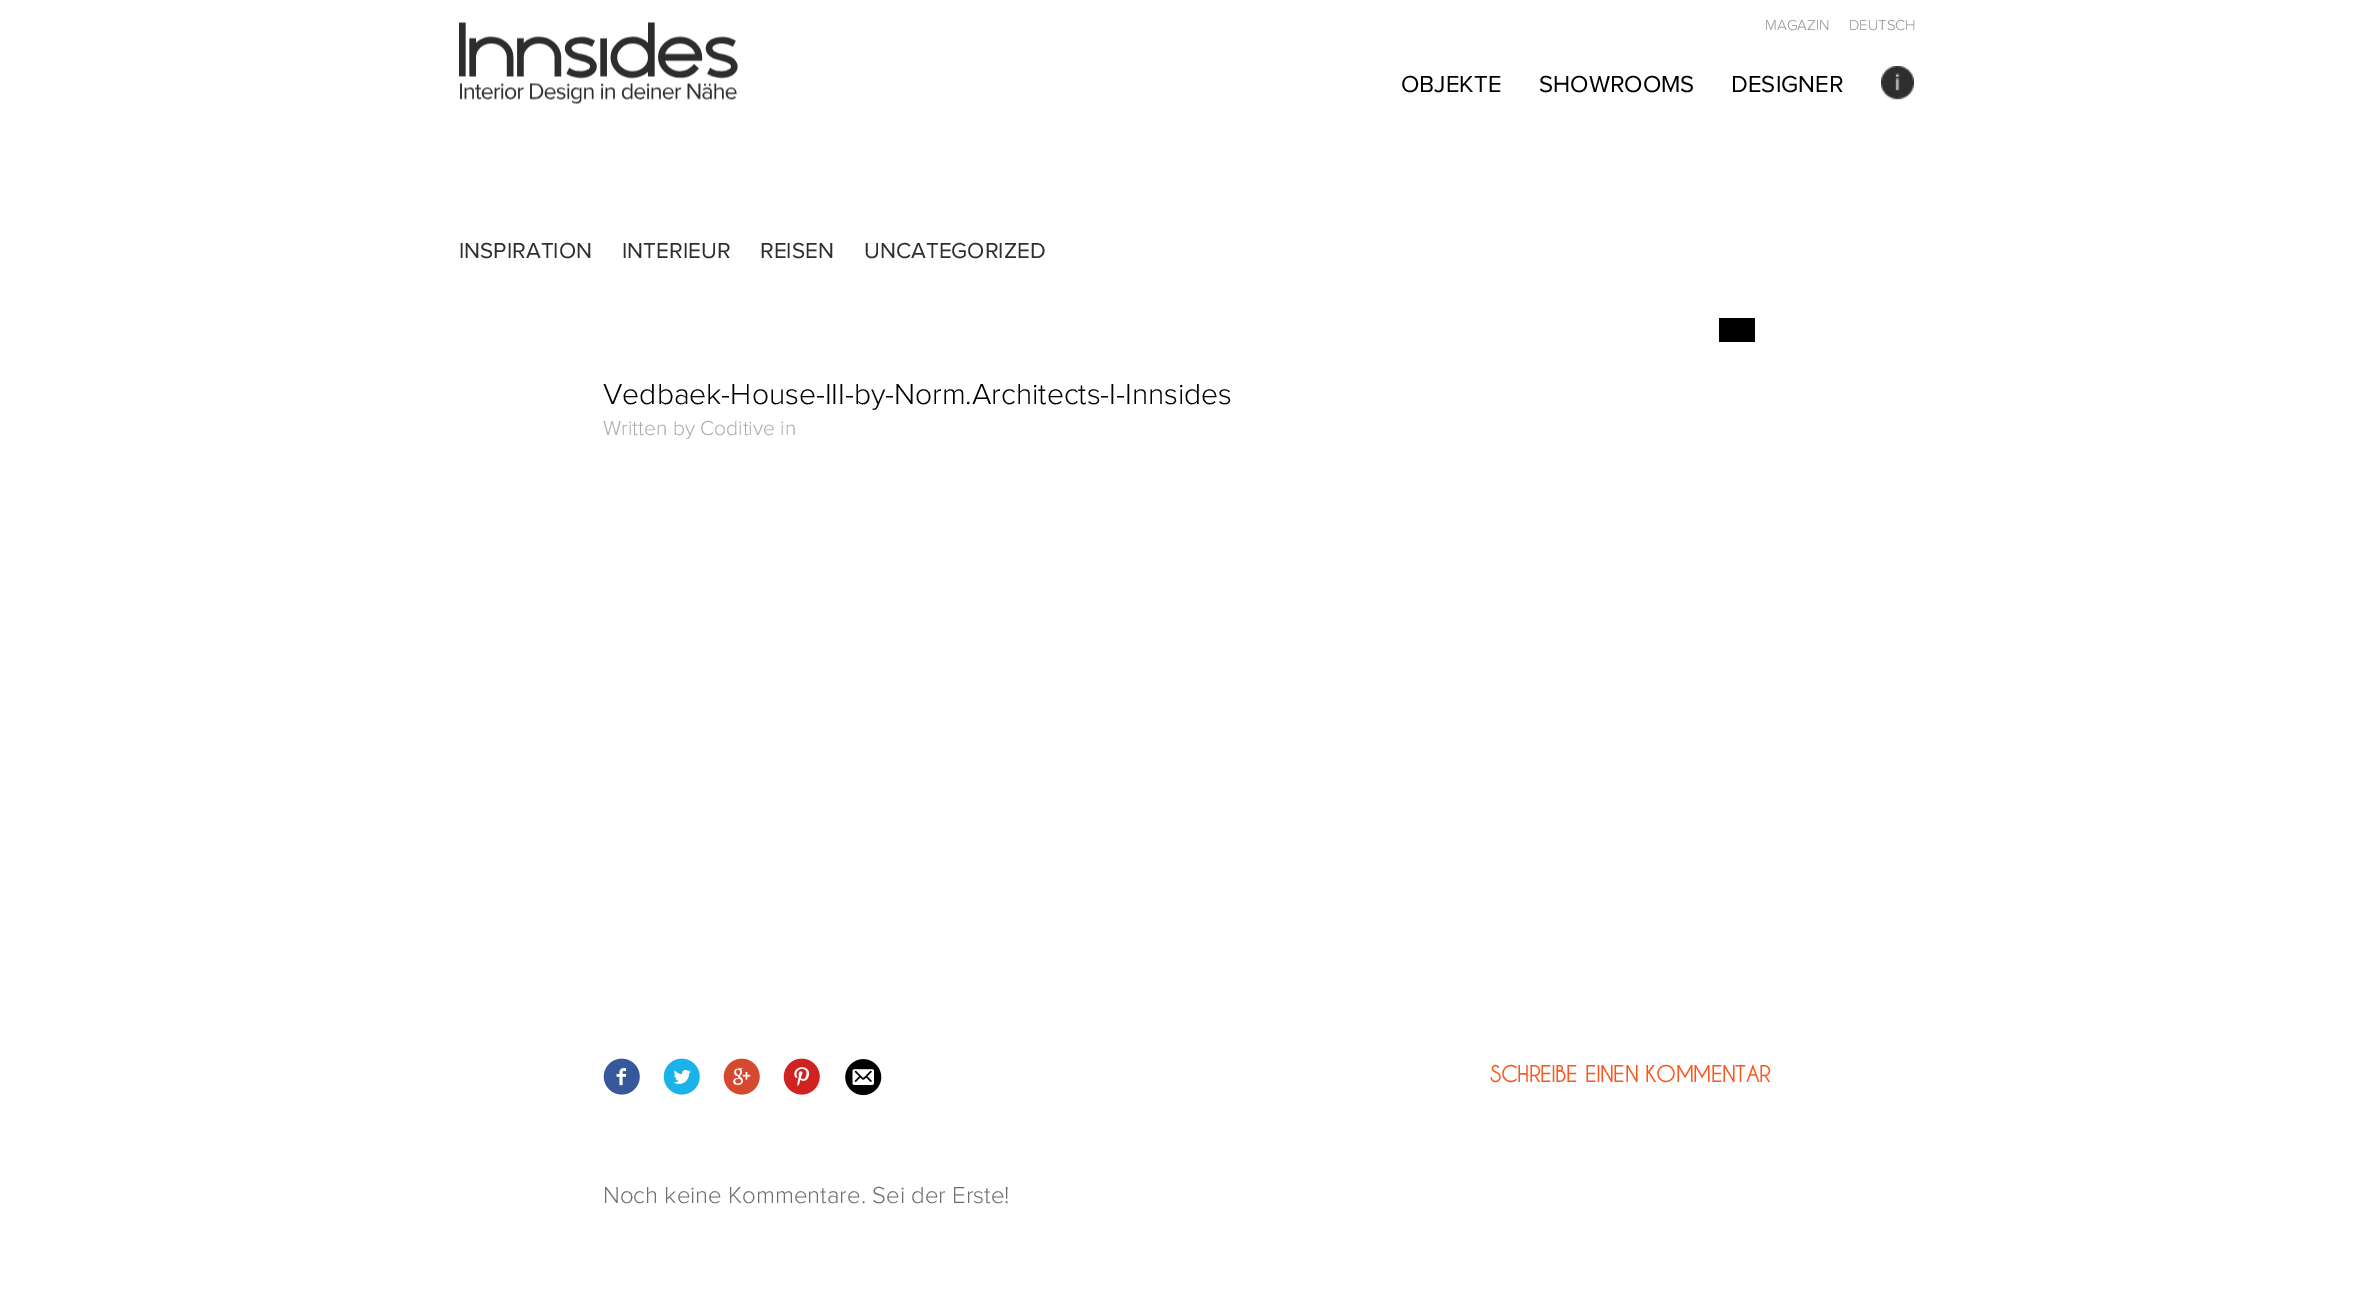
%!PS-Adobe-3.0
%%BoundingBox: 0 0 2373 1300
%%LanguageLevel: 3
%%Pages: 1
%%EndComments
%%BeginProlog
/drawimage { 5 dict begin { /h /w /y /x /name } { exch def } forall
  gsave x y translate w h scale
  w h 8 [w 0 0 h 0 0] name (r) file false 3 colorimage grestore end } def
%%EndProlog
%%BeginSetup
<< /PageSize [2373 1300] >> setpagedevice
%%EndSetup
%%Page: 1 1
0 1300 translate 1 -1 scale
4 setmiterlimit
1 setgray
0 0 2373 1300 rectfill
(images/1.raw) 459 22 279 82 drawimage
(images/2.raw) 1881 66 33 34 drawimage
0 setgray
1719 318 36 24 rectfill
(images/3.raw) 603 1058 37 37 drawimage
(images/4.raw) 663 1058 37 37 drawimage
(images/5.raw) 723 1058 37 37 drawimage
(images/6.raw) 783 1058 37 37 drawimage
(images/7.raw) 845 1059 37 37 drawimage
/ProximaNova-Light [15 0 0 -15 0 0] selectfont
0.561 setgray
1765 30 moveto (MAGAZIN) show
1849 30 moveto (DEUTSCH) show
/ProximaNova-Regular [24 0 0 -24 0 0] selectfont
0 setgray
1401 92 moveto (OBJEKTE) show
1539 92 moveto (SHOWROOMS) show
1731 92 moveto (DESIGNER) show
/ProximaNova-Regular [22.5 0 0 -22.5 0 0] selectfont
0.18 setgray
459 258 moveto (INSPIRATION) show
622 258 moveto (INTERIEUR) show
760 258 moveto (REISEN) show
864 258 moveto (UNCATEGORIZED) show
/ProximaNova-Light [30 0 0 -30 0 0] selectfont
0 setgray
603 404 moveto (Vedbaek-House-III-by-Norm.Architects-I-Innsides) show
/ProximaNova-Light [21 0 0 -21 0 0] selectfont
0.663 setgray
603 435 moveto (Written by Coditive in) show
/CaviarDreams-Bold [21 0 0 -21 0 0] selectfont
0.98 0.341 0.114 setrgbcolor
1490 1082 moveto (SCHREIBE EINEN KOMMENTAR) show
/ProximaNova-Light [24 0 0 -24 0 0] selectfont
0.431 setgray
603 1203 moveto (Noch keine Kommentare. Sei der Erste!) show
showpage
%%EOF
